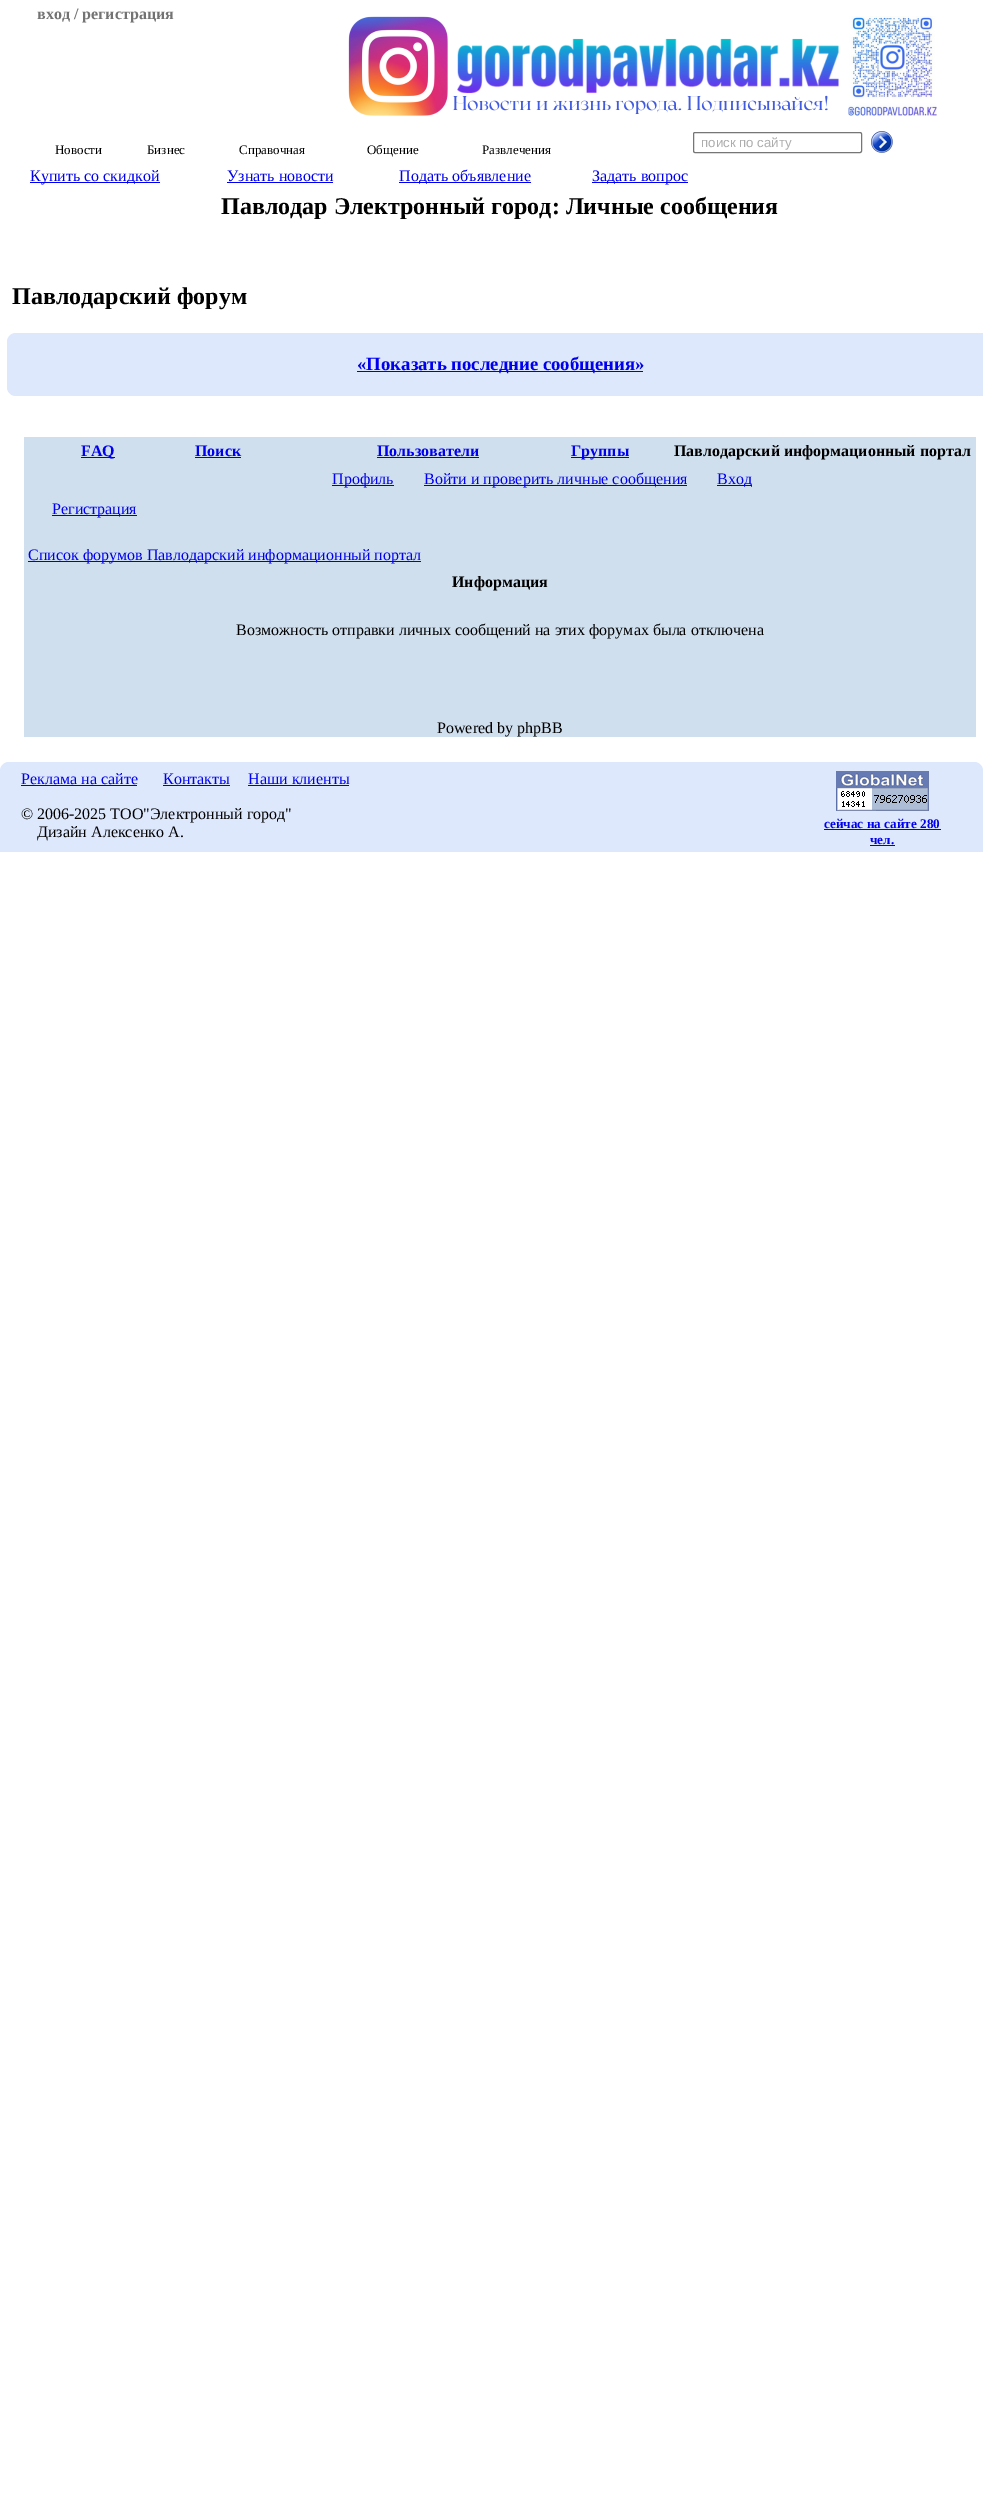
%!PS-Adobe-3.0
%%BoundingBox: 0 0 983 2495
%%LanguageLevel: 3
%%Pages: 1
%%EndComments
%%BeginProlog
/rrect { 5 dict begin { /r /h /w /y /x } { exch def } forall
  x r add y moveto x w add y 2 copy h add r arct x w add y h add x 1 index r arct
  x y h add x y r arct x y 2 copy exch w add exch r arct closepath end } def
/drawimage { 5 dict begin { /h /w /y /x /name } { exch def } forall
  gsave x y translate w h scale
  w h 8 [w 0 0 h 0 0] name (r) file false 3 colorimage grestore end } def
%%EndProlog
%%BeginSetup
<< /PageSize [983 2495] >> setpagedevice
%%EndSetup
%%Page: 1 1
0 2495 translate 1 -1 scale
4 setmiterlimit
1 setgray
0 0 983 2495 rectfill
(images/1.raw) 348 16 589 100 drawimage
0.463 setgray
693.5 132.5 168 20 1.5 rrect stroke
(images/2.raw) 871 131 22 22 drawimage
0 0 0.933 setrgbcolor
30 182 130 1 rectfill
227 182 106 1 rectfill
399 182 132 1 rectfill
592 182 96 1 rectfill
0.867 0.91 0.988 setrgbcolor
7 333 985 63 9 rrect fill
0 0 0.933 setrgbcolor
357 371 286 1 rectfill
0.812 0.875 0.933 setrgbcolor
24 437 952 300 rectfill
0 0 0.933 setrgbcolor
81 457 34 1 rectfill
195 457 46 1 rectfill
377 457 102 1 rectfill
571 457 58 1 rectfill
332 485 62 1 rectfill
424 485 263 1 rectfill
717 485 35 1 rectfill
52 515 85 1 rectfill
28 561 393 1 rectfill
0.867 0.91 0.988 setrgbcolor
newpath 9 762 moveto 974 762 lineto 979 762 983 766 983 771 curveto 983 852 lineto 0 852 lineto 0 771 lineto 0 766 4 762 9 762 curveto closepath fill
0 0 0.933 setrgbcolor
21 785 116 1 rectfill
163 785 67 1 rectfill
248 785 101 1 rectfill
(images/3.raw) 836 771 93 40 drawimage
824 829 117 1 rectfill
870 845 25 1 rectfill
/LiberationSerif-Bold [16 0 0 -16 0 0] selectfont
0.451 setgray
37 19 moveto (вход / регистрация) show
/LiberationSerif-Regular [13 0 0 -13 0 0] selectfont
0 setgray
55 154 moveto (Новости) show
147 154 moveto (Бизнес) show
239 154 moveto (Справочная) show
367 154 moveto (Общение) show
482 154 moveto (Развлечения) show
/LiberationSans-Regular [13.25 0 0 -13.25 0 0] selectfont
0.678 setgray
701 147 moveto (поиск по сайту) show
/LiberationSerif-Regular [16 0 0 -16 0 0] selectfont
0 0 0.933 setrgbcolor
30 181 moveto (Купить со скидкой) show
227 181 moveto (Узнать новости) show
399 181 moveto (Подать объявление) show
592 181 moveto (Задать вопрос) show
/LiberationSerif-Bold [24 0 0 -24 0 0] selectfont
0 setgray
221 214 moveto (Павлодар Электронный город: Личные сообщения) show
12 304 moveto (Павлодарский форум) show
/LiberationSerif-Bold [18.75 0 0 -18.75 0 0] selectfont
0 0 0.933 setrgbcolor
357 370 moveto («Показать последние сообщения») show
/LiberationSerif-Bold [16 0 0 -16 0 0] selectfont
81 456 moveto (FAQ) show
195 456 moveto (Поиск) show
377 456 moveto (Пользователи) show
571 456 moveto (Группы) show
0 setgray
674 456 moveto (Павлодарский информационный портал) show
/LiberationSerif-Regular [16 0 0 -16 0 0] selectfont
0 0 0.933 setrgbcolor
332 484 moveto (Профиль) show
424 484 moveto (Войти и проверить личные сообщения) show
717 484 moveto (Вход) show
52 514 moveto (Регистрация) show
28 560 moveto (Список форумов Павлодарский информационный портал) show
/LiberationSerif-Bold [16 0 0 -16 0 0] selectfont
0 setgray
452 587 moveto (Информация) show
/LiberationSerif-Regular [16 0 0 -16 0 0] selectfont
236 635 moveto (Возможность отправки личных сообщений на этих форумах была отключена) show
437 733 moveto (Powered by phpBB) show
0 0 0.933 setrgbcolor
21 784 moveto (Реклама на сайте) show
163 784 moveto (Контакты) show
248 784 moveto (Наши клиенты) show
/LiberationSerif-Bold [13.25 0 0 -13.25 0 0] selectfont
824 828 moveto (сейчас на сайте 280) show
870 844 moveto (чел.) show
/LiberationSerif-Regular [16 0 0 -16 0 0] selectfont
0 setgray
21 819 moveto (© 2006-2025 ТОО"Электронный город") show
37 837 moveto (Дизайн Алексенко А.) show
showpage
%%EOF
